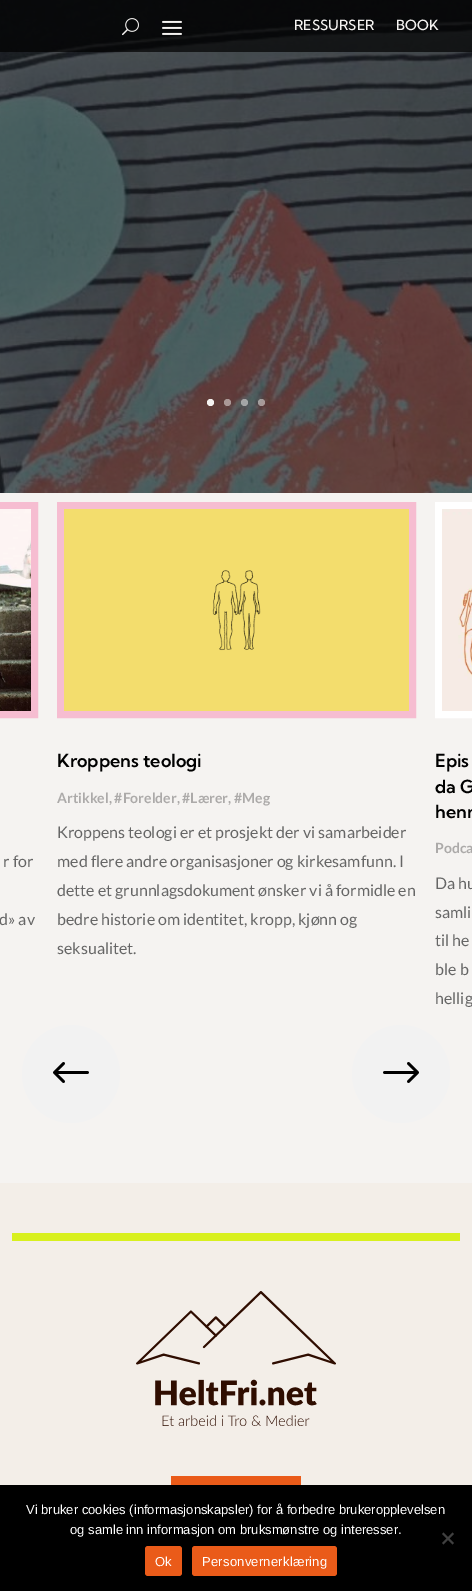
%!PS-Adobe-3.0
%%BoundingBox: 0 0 472 1591
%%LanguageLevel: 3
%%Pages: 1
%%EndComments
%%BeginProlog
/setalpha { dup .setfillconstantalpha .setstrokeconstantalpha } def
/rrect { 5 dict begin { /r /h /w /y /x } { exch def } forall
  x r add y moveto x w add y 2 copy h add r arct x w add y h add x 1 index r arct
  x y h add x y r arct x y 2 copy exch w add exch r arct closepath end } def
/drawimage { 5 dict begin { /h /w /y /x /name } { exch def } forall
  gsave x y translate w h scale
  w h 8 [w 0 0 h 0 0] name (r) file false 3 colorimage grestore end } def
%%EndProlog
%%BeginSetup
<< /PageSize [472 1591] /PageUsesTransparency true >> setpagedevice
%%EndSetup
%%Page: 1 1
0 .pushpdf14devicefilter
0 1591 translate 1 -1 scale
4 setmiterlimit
0.961 0.953 0.945 setrgbcolor
0 0 472 1591 rectfill
(images/3.raw) 0 0 472 493 drawimage
0.7 setalpha
0 setgray
0 0 472 52 rectfill
1 setalpha
(images/1.raw) 122 18 17 18 drawimage
(images/2.raw) 162 20 20 15 drawimage
0.961 0.953 0.945 setrgbcolor
newpath 210.5 402.5 3.5 0 360 arc closepath fill
0.5 setalpha
newpath 227.5 402.5 3.5 0 360 arc closepath fill
newpath 244.5 402.5 3.5 0 360 arc closepath fill
newpath 261.5 402.5 3.5 0 360 arc closepath fill
1 setalpha
0.965 0.741 0.82 setrgbcolor
7 setlinewidth
-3.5 505.5 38 209 rectstroke
(images/4.raw) 0 509 31 202 drawimage
60.5 505.5 352 209 rectstroke
(images/5.raw) 64 509 345 202 drawimage
1 setgray
438.5 505.5 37 209 rectstroke
(images/6.raw) 442 509 30 202 drawimage
0.949 setgray
newpath 71 1074 49 0 360 arc closepath fill
(images/7.raw) 53 1062 36 21 drawimage
newpath 401 1074 49 0 360 arc closepath fill
(images/8.raw) 383 1062 36 21 drawimage
0.953 0.933 0.91 setrgbcolor
0 1183 472 302 rectfill
0.847 0.941 0.118 setrgbcolor
12 1233 448 8 rectfill
(images/9.raw) 136 1291 200 135 drawimage
0.918 0.357 0.098 setrgbcolor
171 1476 130 9 rectfill
0 setgray
0 1485 472 106 rectfill
0.251 setgray
newpath 452.5 1532.5 moveto 454 1534 lineto 443.5 1544.5 lineto 442 1543 lineto closepath fill
newpath 442 1534 moveto 443.5 1532.5 lineto 454 1543 lineto 452.5 1544.5 lineto closepath fill
0.918 0.357 0.098 setrgbcolor
145 1546 37 30 3 rrect fill
192 1546 145 30 3 rrect fill
/KumbhSans-Medium [14 0 0 -14 0 0] selectfont
0.961 0.953 0.945 setrgbcolor
294 30 moveto (RESSURSER) show
396 30 moveto (BOOK) show
/Lato-Regular [16 0 0 -16 0 0] selectfont
0.4 setgray
3 867 moveto (r for) show
-1 925 moveto (d» av) show
/KumbhSans-SemiBold [18 0 0 -18 0 0] selectfont
0 setgray
57 767 moveto (Kroppens teologi) show
/Lato-Bold [14 0 0 -14 0 0] selectfont
0.675 0.667 0.663 setrgbcolor
57 803 moveto (Artikkel, #Forelder, #Lærer, #Meg) show
/Lato-Regular [16 0 0 -16 0 0] selectfont
0.4 setgray
57 838 moveto (Kroppens teologi er et prosjekt der vi samarbeider) show
57 867 moveto (med flere andre organisasjoner og kirkesamfunn. I) show
57 896 moveto (dette et grunnlagsdokument ønsker vi å formidle en) show
57 925 moveto (bedre historie om identitet, kropp, kjønn og) show
57 954 moveto (seksualitet.) show
/KumbhSans-SemiBold [18 0 0 -18 0 0] selectfont
0 setgray
435 767 moveto (Epis) show
435 793 moveto (da G) show
435 818 moveto (henn) show
/Lato-Bold [14 0 0 -14 0 0] selectfont
0.675 0.667 0.663 setrgbcolor
435 853 moveto (Podca) show
/Lato-Regular [16 0 0 -16 0 0] selectfont
0.4 setgray
435 889 moveto (Da hu) show
435 918 moveto (samli) show
435 946 moveto (til he) show
435 975 moveto (ble b) show
435 1004 moveto (hellig) show
/LiberationSans-Regular [13 0 0 -13 0 0] selectfont
1 setgray
26 1514 moveto (Vi bruker cookies \(informasjonskapsler\) for å forbedre brukeropplevelsen) show
70 1534 moveto (og samle inn informasjon om bruksmønstre og interesser.) show
155 1566 moveto 0.25 0 (Ok) ashow
202 1566 moveto 0.25 0 (Personvernerklæring) ashow
.poppdf14devicefilter showpage
%%EOF
